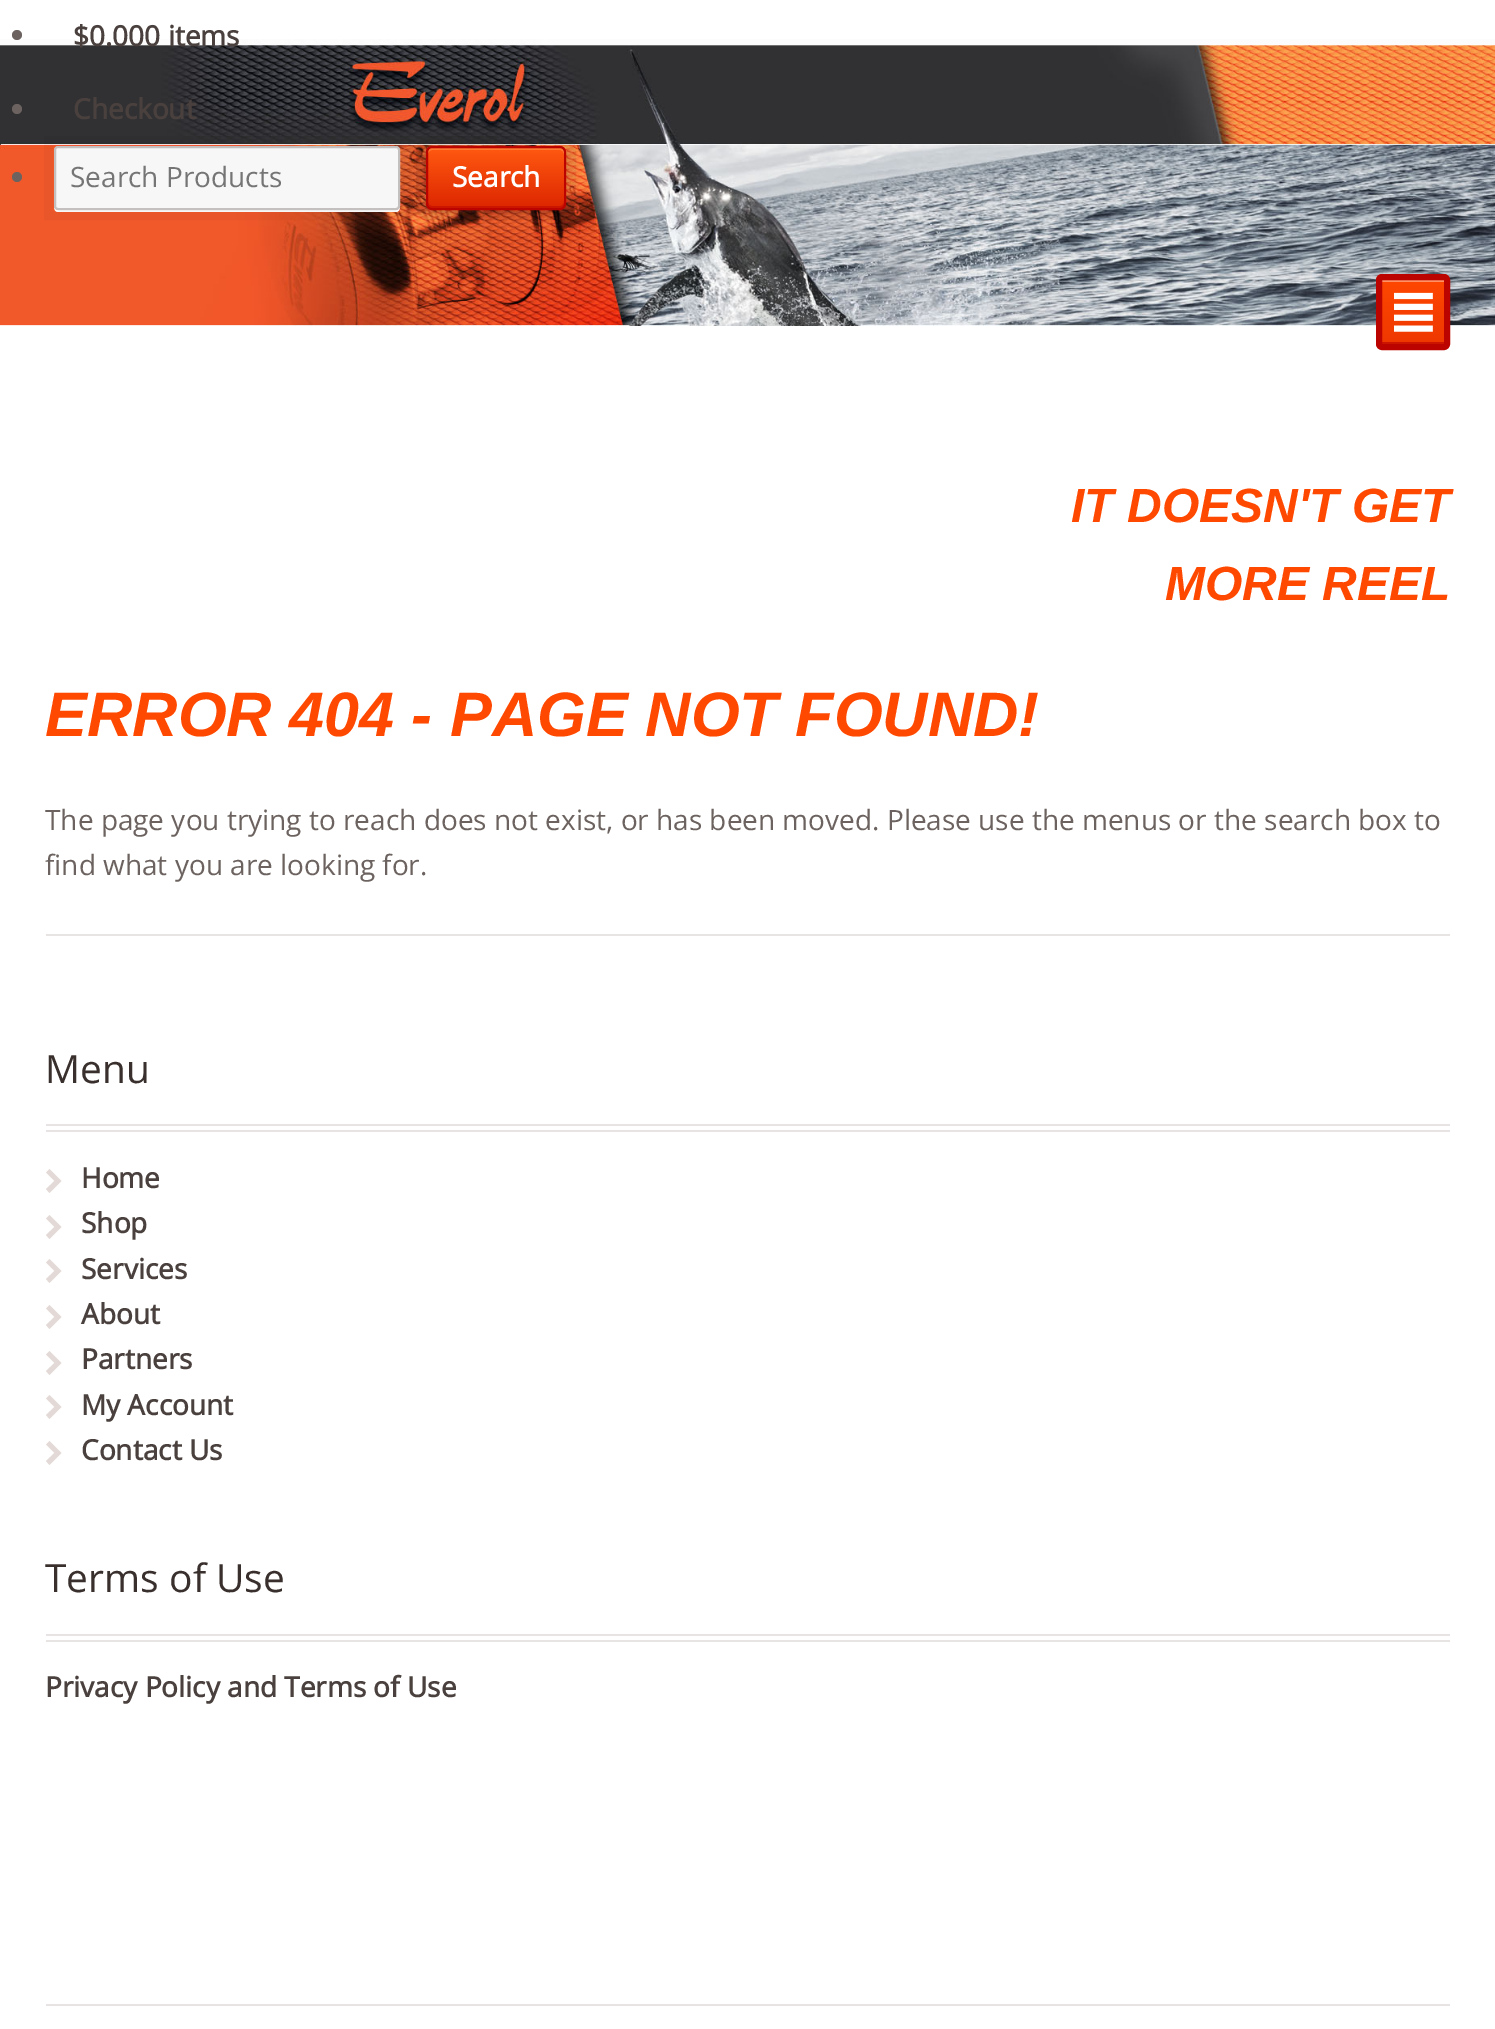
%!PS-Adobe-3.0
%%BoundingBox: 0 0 1495 2029
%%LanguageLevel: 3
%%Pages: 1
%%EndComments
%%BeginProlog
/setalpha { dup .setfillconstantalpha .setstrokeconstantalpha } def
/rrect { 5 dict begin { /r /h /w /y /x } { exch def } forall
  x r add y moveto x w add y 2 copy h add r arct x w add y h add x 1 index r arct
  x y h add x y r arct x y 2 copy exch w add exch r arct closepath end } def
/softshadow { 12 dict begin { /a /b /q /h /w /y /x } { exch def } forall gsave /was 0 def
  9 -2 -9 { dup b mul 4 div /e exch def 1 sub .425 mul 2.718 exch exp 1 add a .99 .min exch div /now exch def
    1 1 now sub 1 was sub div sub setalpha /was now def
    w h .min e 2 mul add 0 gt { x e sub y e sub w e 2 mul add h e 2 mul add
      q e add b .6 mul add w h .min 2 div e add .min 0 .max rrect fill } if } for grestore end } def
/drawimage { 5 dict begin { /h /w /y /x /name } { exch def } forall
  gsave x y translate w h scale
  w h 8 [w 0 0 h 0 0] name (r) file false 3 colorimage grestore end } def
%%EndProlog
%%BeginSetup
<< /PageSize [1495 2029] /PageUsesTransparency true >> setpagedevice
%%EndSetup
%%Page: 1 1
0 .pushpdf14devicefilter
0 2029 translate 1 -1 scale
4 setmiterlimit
1 setgray
0 0 1495 2029 rectfill
(images/1.raw) 0 39 1495 287 drawimage
0.424 0.388 0.376 setrgbcolor
newpath 17 35 5 0 360 arc closepath fill
newpath 17 109 5 0 360 arc closepath fill
newpath 17 177 5 0 360 arc closepath fill
1 setgray
newpath 54 206 moveto 54 209 55 212 58 212 curveto 396 212 lineto 399 212 400 209 400 206 curveto 400 208 398 210 396 210 curveto 58 210 lineto 56 210 54 208 54 206 curveto closepath fill
0.03 setalpha
0 setgray
9 setlinewidth
48.5 140.5 357 75 rectstroke
1 setalpha
0.969 setgray
55 147 344 62 3 rrect gsave fill grestore
0.769 0.753 0.749 setrgbcolor
2 setlinewidth
stroke
0 setgray
426 148 140 64 6 2 0.2 softshadow
0.07 setalpha
9 setlinewidth
420.5 140.5 151 75 9.5 rrect stroke
1 setalpha
gsave 428 148 136 60 4 rrect clip newpath
<< /ShadingType 2 /ColorSpace /DeviceRGB /Coords [496 148 496 208] /Extend [true true] /Function << /FunctionType 2 /Domain [0 1] /C0 [1 0.349 0.067] /C1 [0.867 0.149 0] /N 1 >> >> shfill grestore
0.8 0.082 0 setrgbcolor
newpath 428 202 moveto 428 204 lineto 428 206 430 208 432 208 curveto 560 208 lineto 562 208 564 206 564 204 curveto 564 202 lineto 564 204 562 206 560 206 curveto 432 206 lineto 430 206 428 204 428 202 curveto closepath fill
1 0.482 0.2 setrgbcolor
newpath 432 150 moveto 560 150 lineto 562 150 564 152 564 154 curveto 564 152 lineto 564 150 562 148 560 148 curveto 432 148 lineto 430 148 428 150 428 152 curveto 428 154 lineto 428 152 430 150 432 150 curveto closepath fill
0.733 0.016 0 setrgbcolor
2 setlinewidth
427 147 138 62 5 rrect stroke
gsave newpath 1382 282 moveto 1444 282 lineto 1444 342 lineto 1382 342 lineto closepath clip newpath
<< /ShadingType 2 /ColorSpace /DeviceRGB /Coords [1413 280 1413 344] /Extend [true true] /Function << /FunctionType 2 /Domain [0 1] /C0 [1 0.282 0] /C1 [0.933 0.216 0] /N 1 >> >> shfill grestore
0.8 0.082 0 setrgbcolor
1382 342 62 2 rectfill
1 0.569 0.4 setrgbcolor
1382 280 62 2 rectfill
0.733 0.016 0 setrgbcolor
6 setlinewidth
1379 277 68 70 3 rrect stroke
(images/2.raw) 1394 292 39 40 drawimage
0.91 0.894 0.89 setrgbcolor
46 934 1404 2 rectfill
46 1124 1404 2 rectfill
46 1130 1404 2 rectfill
0.89 0.855 0.843 setrgbcolor
newpath 49.5 1169 moveto 61.5 1181 lineto 49.5 1193 lineto 46 1189 lineto 54.5 1181 lineto 46 1172.5 lineto closepath fill
newpath 49.5 1215 moveto 61.5 1227 lineto 49.5 1239 lineto 46 1235 lineto 54.5 1227 lineto 46 1218.5 lineto closepath fill
newpath 49.5 1259 moveto 61.5 1271 lineto 49.5 1283 lineto 46 1279 lineto 54.5 1271 lineto 46 1262.5 lineto closepath fill
newpath 49.5 1305 moveto 61.5 1317 lineto 49.5 1329 lineto 46 1325 lineto 54.5 1317 lineto 46 1308.5 lineto closepath fill
newpath 49.5 1351 moveto 61.5 1363 lineto 49.5 1375 lineto 46 1371 lineto 54.5 1363 lineto 46 1354.5 lineto closepath fill
newpath 49.5 1395 moveto 61.5 1407 lineto 49.5 1419 lineto 46 1415 lineto 54.5 1407 lineto 46 1398.5 lineto closepath fill
newpath 49.5 1441 moveto 61.5 1453 lineto 49.5 1465 lineto 46 1461 lineto 54.5 1453 lineto 46 1444.5 lineto closepath fill
0.91 0.894 0.89 setrgbcolor
46 1634 1404 2 rectfill
46 1640 1404 2 rectfill
46 2004 1404 2 rectfill
/OpenSans-Bold [28 0 0 -28 0 0] selectfont
0.29 0.255 0.243 setrgbcolor
73 46 moveto ($0.000 items) show
73 119 moveto (Checkout) show
/OpenSans-Regular [28 0 0 -28 0 0] selectfont
0.459 setgray
70 187 moveto (Search Products) show
/OpenSans-Bold [28 0 0 -28 0 0] selectfont
1 setgray
452 187 moveto (Search) show
/LiberationSans-BoldItalic [48 0 0 -48 0 0] selectfont
1 0.282 0 setrgbcolor
1071 522 moveto (IT DOESN'T GET) show
1165 600 moveto (MORE REEL) show
/LiberationSans-BoldItalic [62.8 0 0 -62.8 0 0] selectfont
45 736 moveto (ERROR 404 - PAGE NOT FOUND!) show
/OpenSans-Regular [28 0 0 -28 0 0] selectfont
0.424 0.388 0.376 setrgbcolor
45 830 moveto (The page you trying to reach does not exist, or has been moved. Please use the menus or the search box to) show
45 875 moveto (find what you are looking for.) show
/OpenSans-Regular [39 0 0 -39 0 0] selectfont
0.224 0.188 0.176 setrgbcolor
45 1083 moveto (Menu) show
/OpenSans-Bold [28 0 0 -28 0 0] selectfont
0.29 0.255 0.243 setrgbcolor
81 1188 moveto (Home) show
81 1233 moveto (Shop) show
81 1279 moveto (Services) show
81 1324 moveto (About) show
81 1369 moveto (Partners) show
81 1415 moveto (My Account) show
81 1460 moveto (Contact Us) show
/OpenSans-Regular [39 0 0 -39 0 0] selectfont
0.224 0.188 0.176 setrgbcolor
45 1592 moveto (Terms of Use) show
/OpenSans-Bold [28 0 0 -28 0 0] selectfont
0.29 0.255 0.243 setrgbcolor
45 1697 moveto (Privacy Policy and Terms of Use) show
.poppdf14devicefilter showpage
%%EOF
